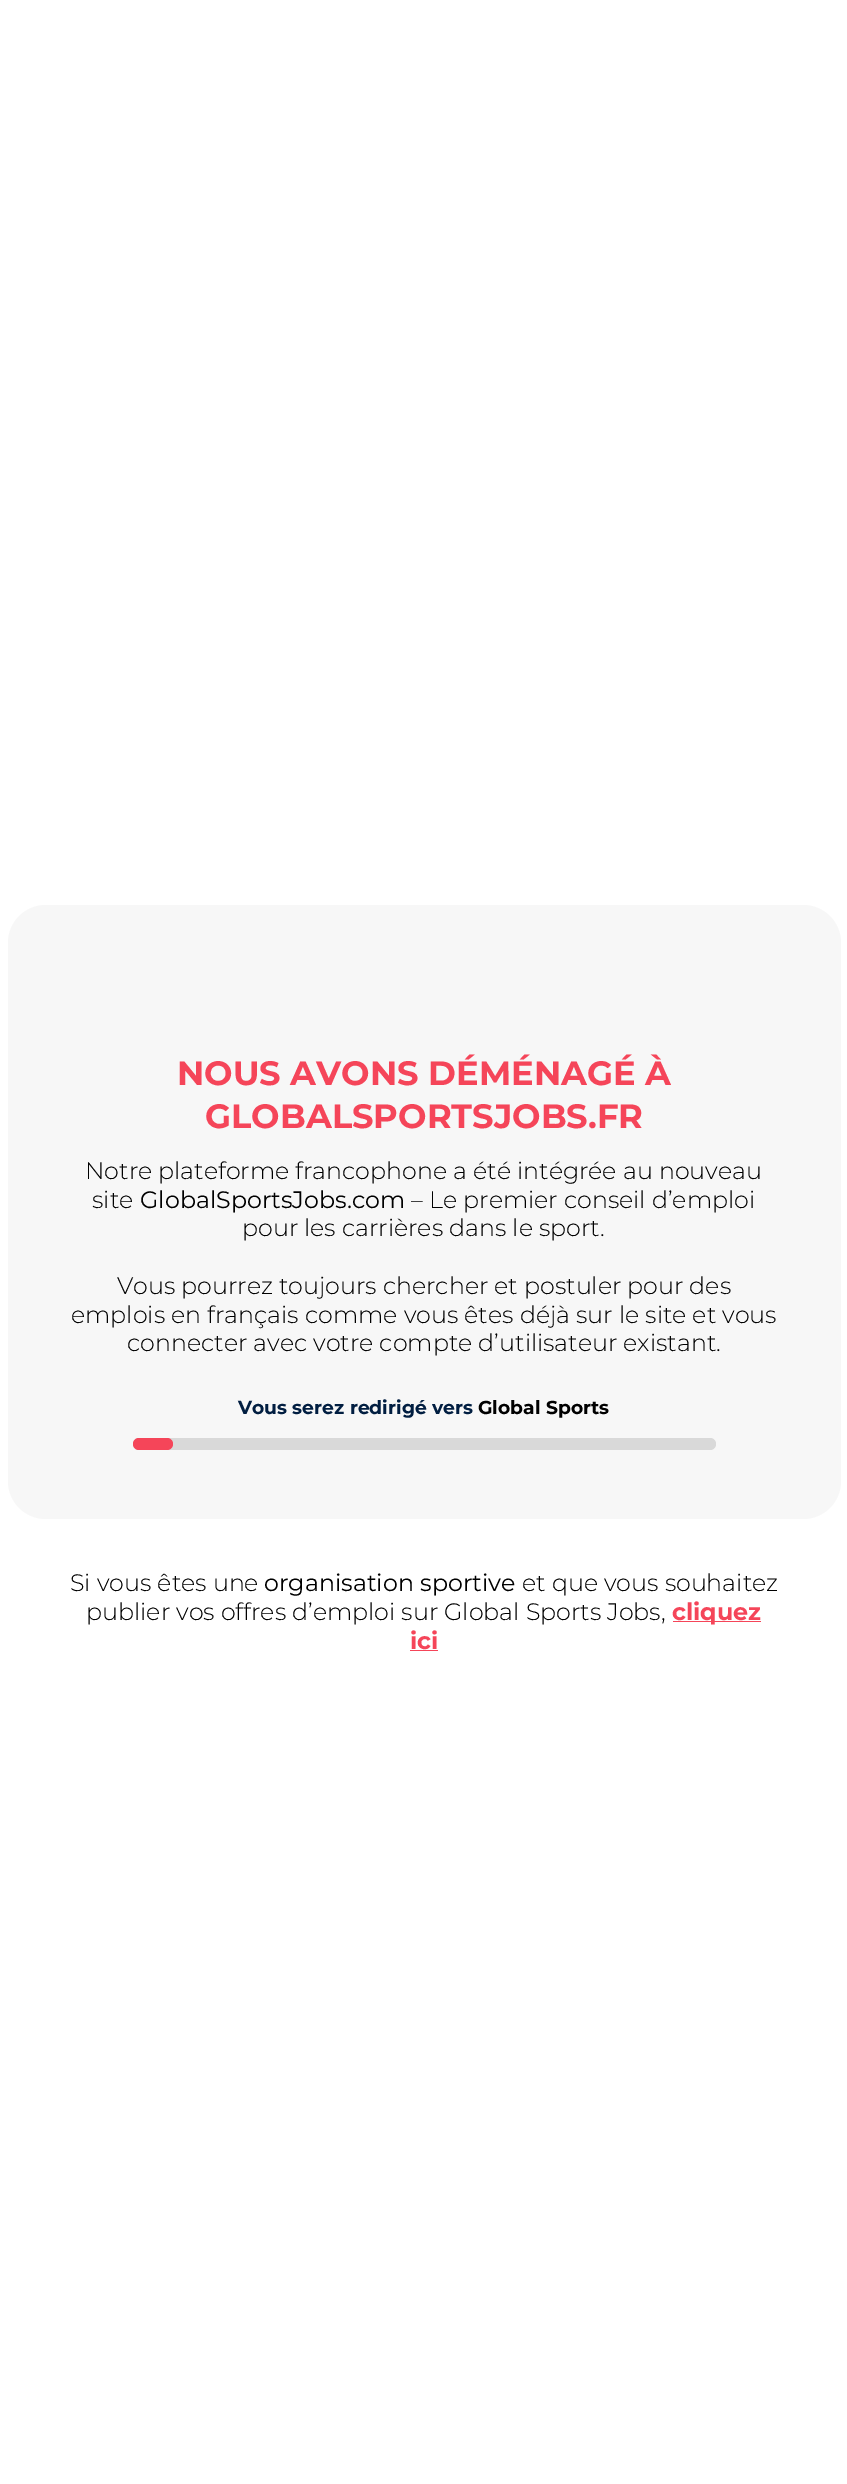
%!PS-Adobe-3.0
%%BoundingBox: 0 0 847 2484
%%LanguageLevel: 3
%%Pages: 1
%%EndComments
%%BeginProlog
/rrect { 5 dict begin { /r /h /w /y /x } { exch def } forall
  x r add y moveto x w add y 2 copy h add r arct x w add y h add x 1 index r arct
  x y h add x y r arct x y 2 copy exch w add exch r arct closepath end } def
%%EndProlog
%%BeginSetup
<< /PageSize [847 2484] >> setpagedevice
%%EndSetup
%%Page: 1 1
0 2484 translate 1 -1 scale
4 setmiterlimit
1 setgray
0 0 847 2484 rectfill
0.969 setgray
8 905 833 614 38 rrect fill
0.851 setgray
133 1438 583 12 6 rrect fill
0.961 0.271 0.349 setrgbcolor
133 1438 40 12 6 rrect fill
673 1621 88 1 rectfill
410 1650 28 1 rectfill
/Montserrat-Bold [33.75 0 0 -33.75 0 0] selectfont
177 1085 moveto (NOUS AVONS DÉMÉNAGÉ À) show
205 1128 moveto (GLOBALSPORTSJOBS.FR) show
/Montserrat-Light [23.75 0 0 -23.75 0 0] selectfont
0 setgray
85 1179 moveto (Notre plateforme francophone a été intégrée au nouveau) show
92 1208 moveto (site) show
/Montserrat-Regular [23.75 0 0 -23.75 0 0] selectfont
140 1208 moveto (GlobalSportsJobs.com) show
/Montserrat-Light [23.75 0 0 -23.75 0 0] selectfont
411 1208 moveto (– Le premier conseil d’emploi) show
242 1236 moveto (pour les carrières dans le sport.) show
117 1294 moveto (Vous pourrez toujours chercher et postuler pour des) show
71 1323 moveto (emplois en français comme vous êtes déjà sur le site et vous) show
127 1351 moveto (connecter avec votre compte d’utilisateur existant.) show
/Montserrat-Bold [18.75 0 0 -18.75 0 0] selectfont
0.004 0.118 0.255 setrgbcolor
238 1414 moveto (Vous serez redirigé vers) show
0 setgray
478 1414 moveto (Global Sports) show
/Montserrat-Light [23.75 0 0 -23.75 0 0] selectfont
70 1591 moveto (Si vous êtes une) show
/Montserrat-Regular [23.75 0 0 -23.75 0 0] selectfont
264 1591 moveto (organisation sportive) show
/Montserrat-Light [23.75 0 0 -23.75 0 0] selectfont
522 1591 moveto (et que vous souhaitez) show
86 1620 moveto (publier vos offres d’emploi sur Global Sports Jobs,) show
/Montserrat-Bold [23.75 0 0 -23.75 0 0] selectfont
0.961 0.271 0.349 setrgbcolor
672 1620 moveto (cliquez) show
410 1649 moveto (ici) show
showpage
%%EOF
